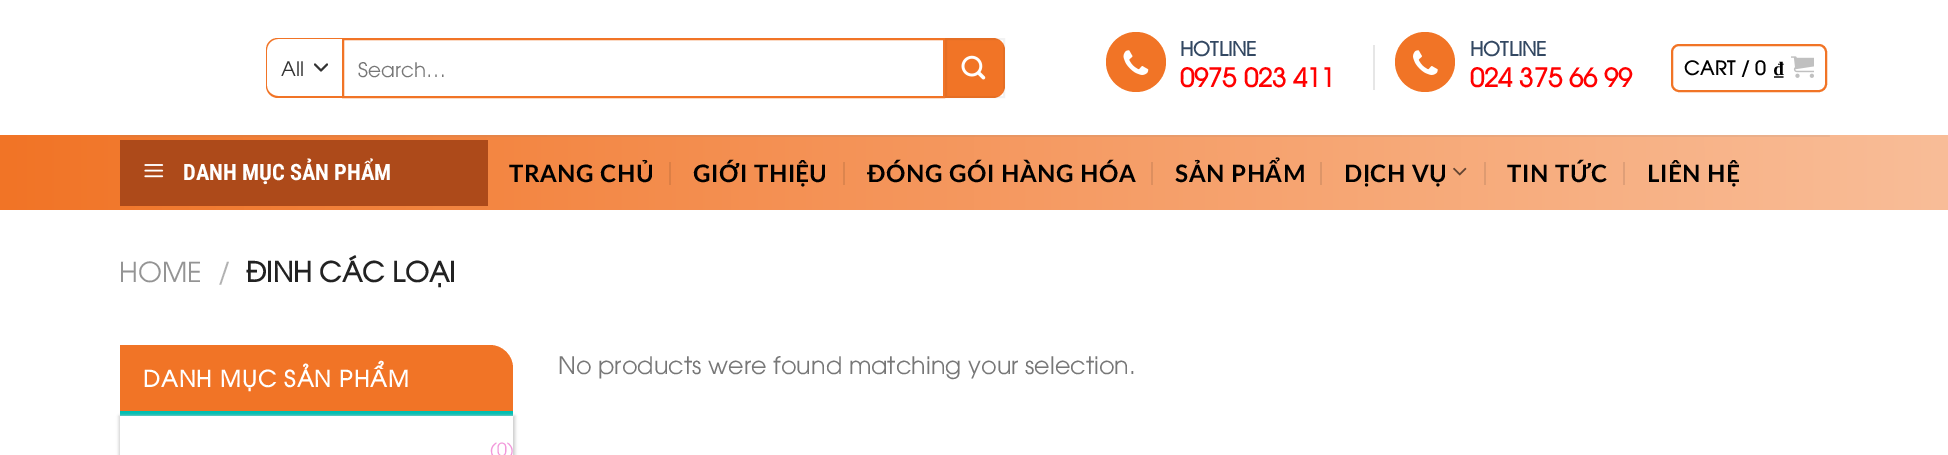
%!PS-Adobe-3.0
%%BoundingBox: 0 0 1948 455
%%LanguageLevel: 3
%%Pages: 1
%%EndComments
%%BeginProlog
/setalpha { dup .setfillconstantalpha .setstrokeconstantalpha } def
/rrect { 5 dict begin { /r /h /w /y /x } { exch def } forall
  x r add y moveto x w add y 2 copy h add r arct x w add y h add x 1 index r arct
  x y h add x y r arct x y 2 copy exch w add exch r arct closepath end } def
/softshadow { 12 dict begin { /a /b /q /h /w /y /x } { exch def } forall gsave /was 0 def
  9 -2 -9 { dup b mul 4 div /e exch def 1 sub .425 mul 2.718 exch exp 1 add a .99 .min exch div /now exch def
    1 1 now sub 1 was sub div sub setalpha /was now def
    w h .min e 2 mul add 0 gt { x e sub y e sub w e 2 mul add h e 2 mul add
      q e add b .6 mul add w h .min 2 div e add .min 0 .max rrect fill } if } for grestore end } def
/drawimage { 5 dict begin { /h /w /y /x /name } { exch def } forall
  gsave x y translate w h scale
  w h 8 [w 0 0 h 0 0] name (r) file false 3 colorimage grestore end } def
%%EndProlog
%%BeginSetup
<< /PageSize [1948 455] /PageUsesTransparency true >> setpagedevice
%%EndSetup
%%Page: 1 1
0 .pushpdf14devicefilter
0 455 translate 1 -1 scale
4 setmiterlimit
1 setgray
0 0 1948 455 rectfill
0.2 setgray
2 setlinewidth
1 setlinecap
1 setlinejoin
newpath 315 64.5 moveto 321 70.5 lineto 327 64.5 lineto stroke
0.945 0.455 0.149 setrgbcolor
newpath 278 38 moveto 342 38 lineto 342 98 lineto 278 98 lineto 271 98 266 92 266 86 curveto 266 50 lineto 266 43 271 38 278 38 curveto closepath 278 39 moveto 342 39 lineto 342 96 lineto 278 96 lineto 272 96 267 91 267 86 curveto 267 50 lineto 267 44 272 39 278 39 curveto closepath eofill
0 setlinecap
0 setlinejoin
343 39 601 58 rectstroke
newpath 945 38 moveto 993 38 lineto 999.5 38 1005 43.5 1005 50 curveto 1005 86 lineto 1005 92.5 999.5 98 993 98 curveto 945 98 lineto closepath fill
0.05 setalpha
0 setgray
946 39 58 58 rectstroke
1 setalpha
(images/1.raw) 961 55 25 25 drawimage
0.945 0.455 0.149 setrgbcolor
newpath 1136 62 30 0 360 arc closepath fill
(images/2.raw) 1123 50 26 25 drawimage
0.902 setgray
1373 45 2 45 rectfill
0.945 0.455 0.149 setrgbcolor
newpath 1425 62 30 0 360 arc closepath fill
(images/3.raw) 1413 50 25 25 drawimage
1672 45 154 46 7 rrect stroke
(images/4.raw) 1791 56 23 22 drawimage
gsave newpath 0 135 moveto 1948 135 lineto 1948 210 lineto 0 210 lineto closepath clip newpath
<< /ShadingType 2 /ColorSpace /DeviceRGB /Coords [0 173 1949 172] /Extend [true true] /Function << /FunctionType 2 /Domain [0 1] /C0 [0.945 0.455 0.149] /C1 [0.976 0.741 0.596] /N 1 >> >> shfill grestore
gsave newpath 120 135 moveto 1830 135 lineto 1830 137 lineto 120 137 lineto closepath clip newpath
<< /ShadingType 2 /ColorSpace /DeviceRGB /Coords [0 173 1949 172] /Extend [true true] /Function << /FunctionType 2 /Domain [0 1] /C0 [0.898 0.455 0.18] /C1 [0.925 0.714 0.584] /N 1 >> >> shfill grestore
0.678 0.29 0.102 setrgbcolor
120 140 368 66 rectfill
(images/5.raw) 144 164 20 14 drawimage
0.863 0.498 0.271 setrgbcolor
669 162 2 23 rectfill
0.863 0.522 0.306 setrgbcolor
843 162 2 23 rectfill
0.867 0.561 0.373 setrgbcolor
1151 162 2 23 rectfill
0.867 0.584 0.408 setrgbcolor
1320 162 2 23 rectfill
(images/6.raw) 1453 167 14 9 drawimage
0.871 0.608 0.443 setrgbcolor
1484 162 2 23 rectfill
0.875 0.624 0.471 setrgbcolor
1623 162 2 23 rectfill
0.945 0.455 0.149 setrgbcolor
newpath 120 345 moveto 490 345 lineto 502.5 345 513 355.5 513 368 curveto 513 416 lineto 120 416 lineto closepath fill
0 0.749 0.698 setrgbcolor
120 411 393 5 rectfill
gsave
newpath 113 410 moveto 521 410 lineto 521 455 lineto 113 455 lineto closepath 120 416 moveto 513 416 lineto 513 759 lineto 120 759 lineto closepath eoclip newpath
0.8 setgray
119 416 396 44 0 1.5 1 softshadow
grestore
/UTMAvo-Regular [20 0 0 -20 0 0] selectfont
0.2 setgray
281 76 moveto (All) show
0.467 setgray
358 77 moveto (Search…) show
/UTMAvo-Bold [19.5 0 0 -19.5 0 0] selectfont
0.2 0.282 0.384 setrgbcolor
1180 56 moveto (HOTLINE) show
/UTMAvo-Bold [25.5 0 0 -25.5 0 0] selectfont
1 0 0 setrgbcolor
1180 87 moveto (0975 023 411) show
/UTMAvo-Bold [19.5 0 0 -19.5 0 0] selectfont
0.2 0.282 0.384 setrgbcolor
1470 56 moveto (HOTLINE) show
/UTMAvo-Bold [25.5 0 0 -25.5 0 0] selectfont
1 0 0 setrgbcolor
1470 87 moveto (024 375 66 99) show
/UTMAvo-Bold [19 0 0 -19 0 0] selectfont
0 setgray
1684 75 moveto 0.5 0 (CART / 0) ashow
/LiberationSerif-Bold [19 0 0 -19 0 0] selectfont
1774 75 moveto 0.5 0 (₫) ashow
/RobotoCondensed-Bold [22.5 0 0 -22.5 0 0] selectfont
1 setgray
183 180 moveto (DANH MỤC SẢN PHẨM) show
/Lato-Bold [24 0 0 -24 0 0] selectfont
0 setgray
509 182 moveto 0.5 0 (TRANG CHỦ) ashow
693 182 moveto 0.5 0 (GIỚI THIỆU) ashow
867 182 moveto 0.5 0 (ĐÓNG GÓI HÀNG HÓA) ashow
1175 182 moveto 0.5 0 (SẢN PHẨM) ashow
1344 182 moveto 0.5 0 (DỊCH VỤ) ashow
1507 182 moveto 0.5 0 (TIN TỨC) ashow
1647 182 moveto 0.5 0 (LIÊN HỆ) ashow
/UTMAvo-Regular [27.5 0 0 -27.5 0 0] selectfont
0.58 setgray
119 282 moveto (HOME) show
0.698 setgray
218 282 moveto (/) show
/UTMAvo-Bold [27.5 0 0 -27.5 0 0] selectfont
0.133 setgray
246 282 moveto (ĐINH CÁC LOẠI) show
/UTMAvo-Bold [22.5 0 0 -22.5 0 0] selectfont
1 setgray
143 387 moveto 1.1 0 (DANH MỤC SẢN PHẨM) ashow
/UTMAvo-Regular [18 0 0 -18 0 0] selectfont
0.949 0.6 0.859 setrgbcolor
490 456 moveto (\(0\)) show
/UTMAvo-Regular [24 0 0 -24 0 0] selectfont
0.467 setgray
558 374 moveto (No products were found matching your selection.) show
.poppdf14devicefilter showpage
%%EOF
